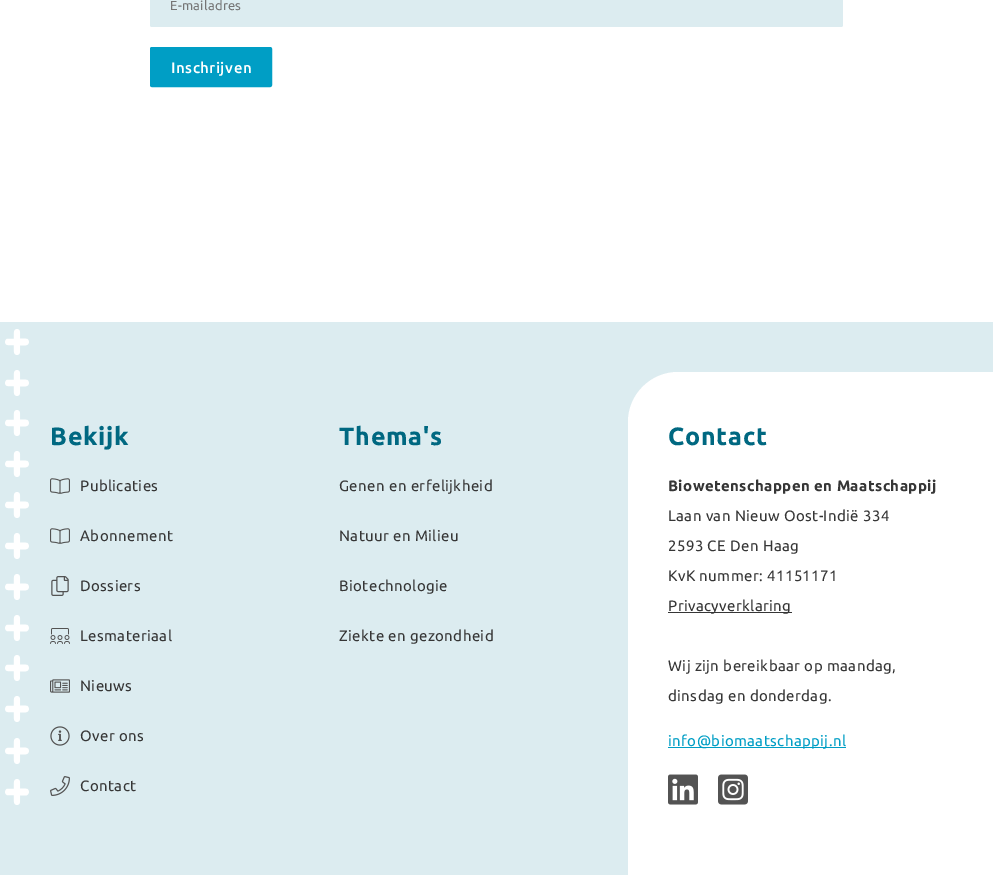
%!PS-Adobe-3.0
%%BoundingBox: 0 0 993 875
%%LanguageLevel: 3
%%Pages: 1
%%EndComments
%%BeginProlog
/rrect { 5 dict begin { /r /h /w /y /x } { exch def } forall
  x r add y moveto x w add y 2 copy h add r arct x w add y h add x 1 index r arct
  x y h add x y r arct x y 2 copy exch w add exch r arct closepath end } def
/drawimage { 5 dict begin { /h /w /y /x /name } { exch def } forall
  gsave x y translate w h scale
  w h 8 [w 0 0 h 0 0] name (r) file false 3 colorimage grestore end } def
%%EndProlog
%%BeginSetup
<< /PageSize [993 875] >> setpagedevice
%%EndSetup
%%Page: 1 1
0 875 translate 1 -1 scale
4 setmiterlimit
1 setgray
0 0 993 875 rectfill
0.863 0.925 0.941 setrgbcolor
150 -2 693 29 2 rrect fill
0 0.62 0.773 setrgbcolor
150.5 47.5 121 39 1.5 rrect gsave fill grestore
stroke
0.863 0.925 0.941 setrgbcolor
0 322 993 553 rectfill
(images/1.raw) 5 329 24 476 drawimage
(images/2.raw) 50 478 20 16 drawimage
(images/2.raw) 50 528 20 16 drawimage
(images/3.raw) 51 576 18 20 drawimage
(images/4.raw) 50 628 20 16 drawimage
(images/5.raw) 50 679 20 14 drawimage
(images/6.raw) 50 726 20 20 drawimage
(images/7.raw) 50 776 20 20 drawimage
1 setgray
newpath 678 372 moveto 993 372 lineto 993 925 lineto 628 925 lineto 628 422 lineto 628 394.5 650.5 372 678 372 curveto closepath fill
0.212 setgray
668 612 124 1 rectfill
0 0.62 0.773 setrgbcolor
668 747 178 1 rectfill
(images/8.raw) 668 774 30 31 drawimage
(images/9.raw) 718 774 30 31 drawimage
/Ubuntu-Regular [13 0 0 -13 0 0] selectfont
0.459 setgray
170 10 moveto 0.25 0 (E-mailadres) ashow
/Ubuntu-Medium [15 0 0 -15 0 0] selectfont
1 setgray
171 73 moveto 0.5 0 (Inschrijven) ashow
/Ubuntu-Bold [25 0 0 -25 0 0] selectfont
0 0.408 0.506 setrgbcolor
50 445 moveto 0.75 0 (Bekijk) ashow
/Ubuntu-Regular [15 0 0 -15 0 0] selectfont
0.212 setgray
80 491 moveto 0.4 0 (Publicaties) ashow
80 541 moveto 0.4 0 (Abonnement) ashow
80 591 moveto 0.4 0 (Dossiers) ashow
80 641 moveto 0.4 0 (Lesmateriaal) ashow
80 691 moveto 0.4 0 (Nieuws) ashow
80 741 moveto 0.4 0 (Over ons) ashow
80 791 moveto 0.4 0 (Contact) ashow
/Ubuntu-Bold [25 0 0 -25 0 0] selectfont
0 0.408 0.506 setrgbcolor
339 445 moveto 0.75 0 (Thema's) ashow
/Ubuntu-Regular [15 0 0 -15 0 0] selectfont
0.212 setgray
339 491 moveto 0.4 0 (Genen en erfelijkheid) ashow
339 541 moveto 0.4 0 (Natuur en Milieu) ashow
339 591 moveto 0.4 0 (Biotechnologie) ashow
339 641 moveto 0.4 0 (Ziekte en gezondheid) ashow
/Ubuntu-Bold [25 0 0 -25 0 0] selectfont
0 0.408 0.506 setrgbcolor
668 445 moveto 0.75 0 (Contact) ashow
/Ubuntu-Bold [15 0 0 -15 0 0] selectfont
0.212 setgray
668 491 moveto 0.4 0 (Biowetenschappen en Maatschappij) ashow
/Ubuntu-Regular [15 0 0 -15 0 0] selectfont
668 521 moveto 0.4 0 (Laan van Nieuw Oost-Indië 334) ashow
668 551 moveto 0.4 0 (2593 CE Den Haag) ashow
668 581 moveto 0.4 0 (KvK nummer: 41151171) ashow
668 611 moveto 0.4 0 (Privacyverklaring) ashow
668 671 moveto 0.4 0 (Wij zijn bereikbaar op maandag,) ashow
668 701 moveto 0.4 0 (dinsdag en donderdag.) ashow
0 0.62 0.773 setrgbcolor
668 746 moveto 0.4 0 (info@biomaatschappij.nl) ashow
showpage
%%EOF
